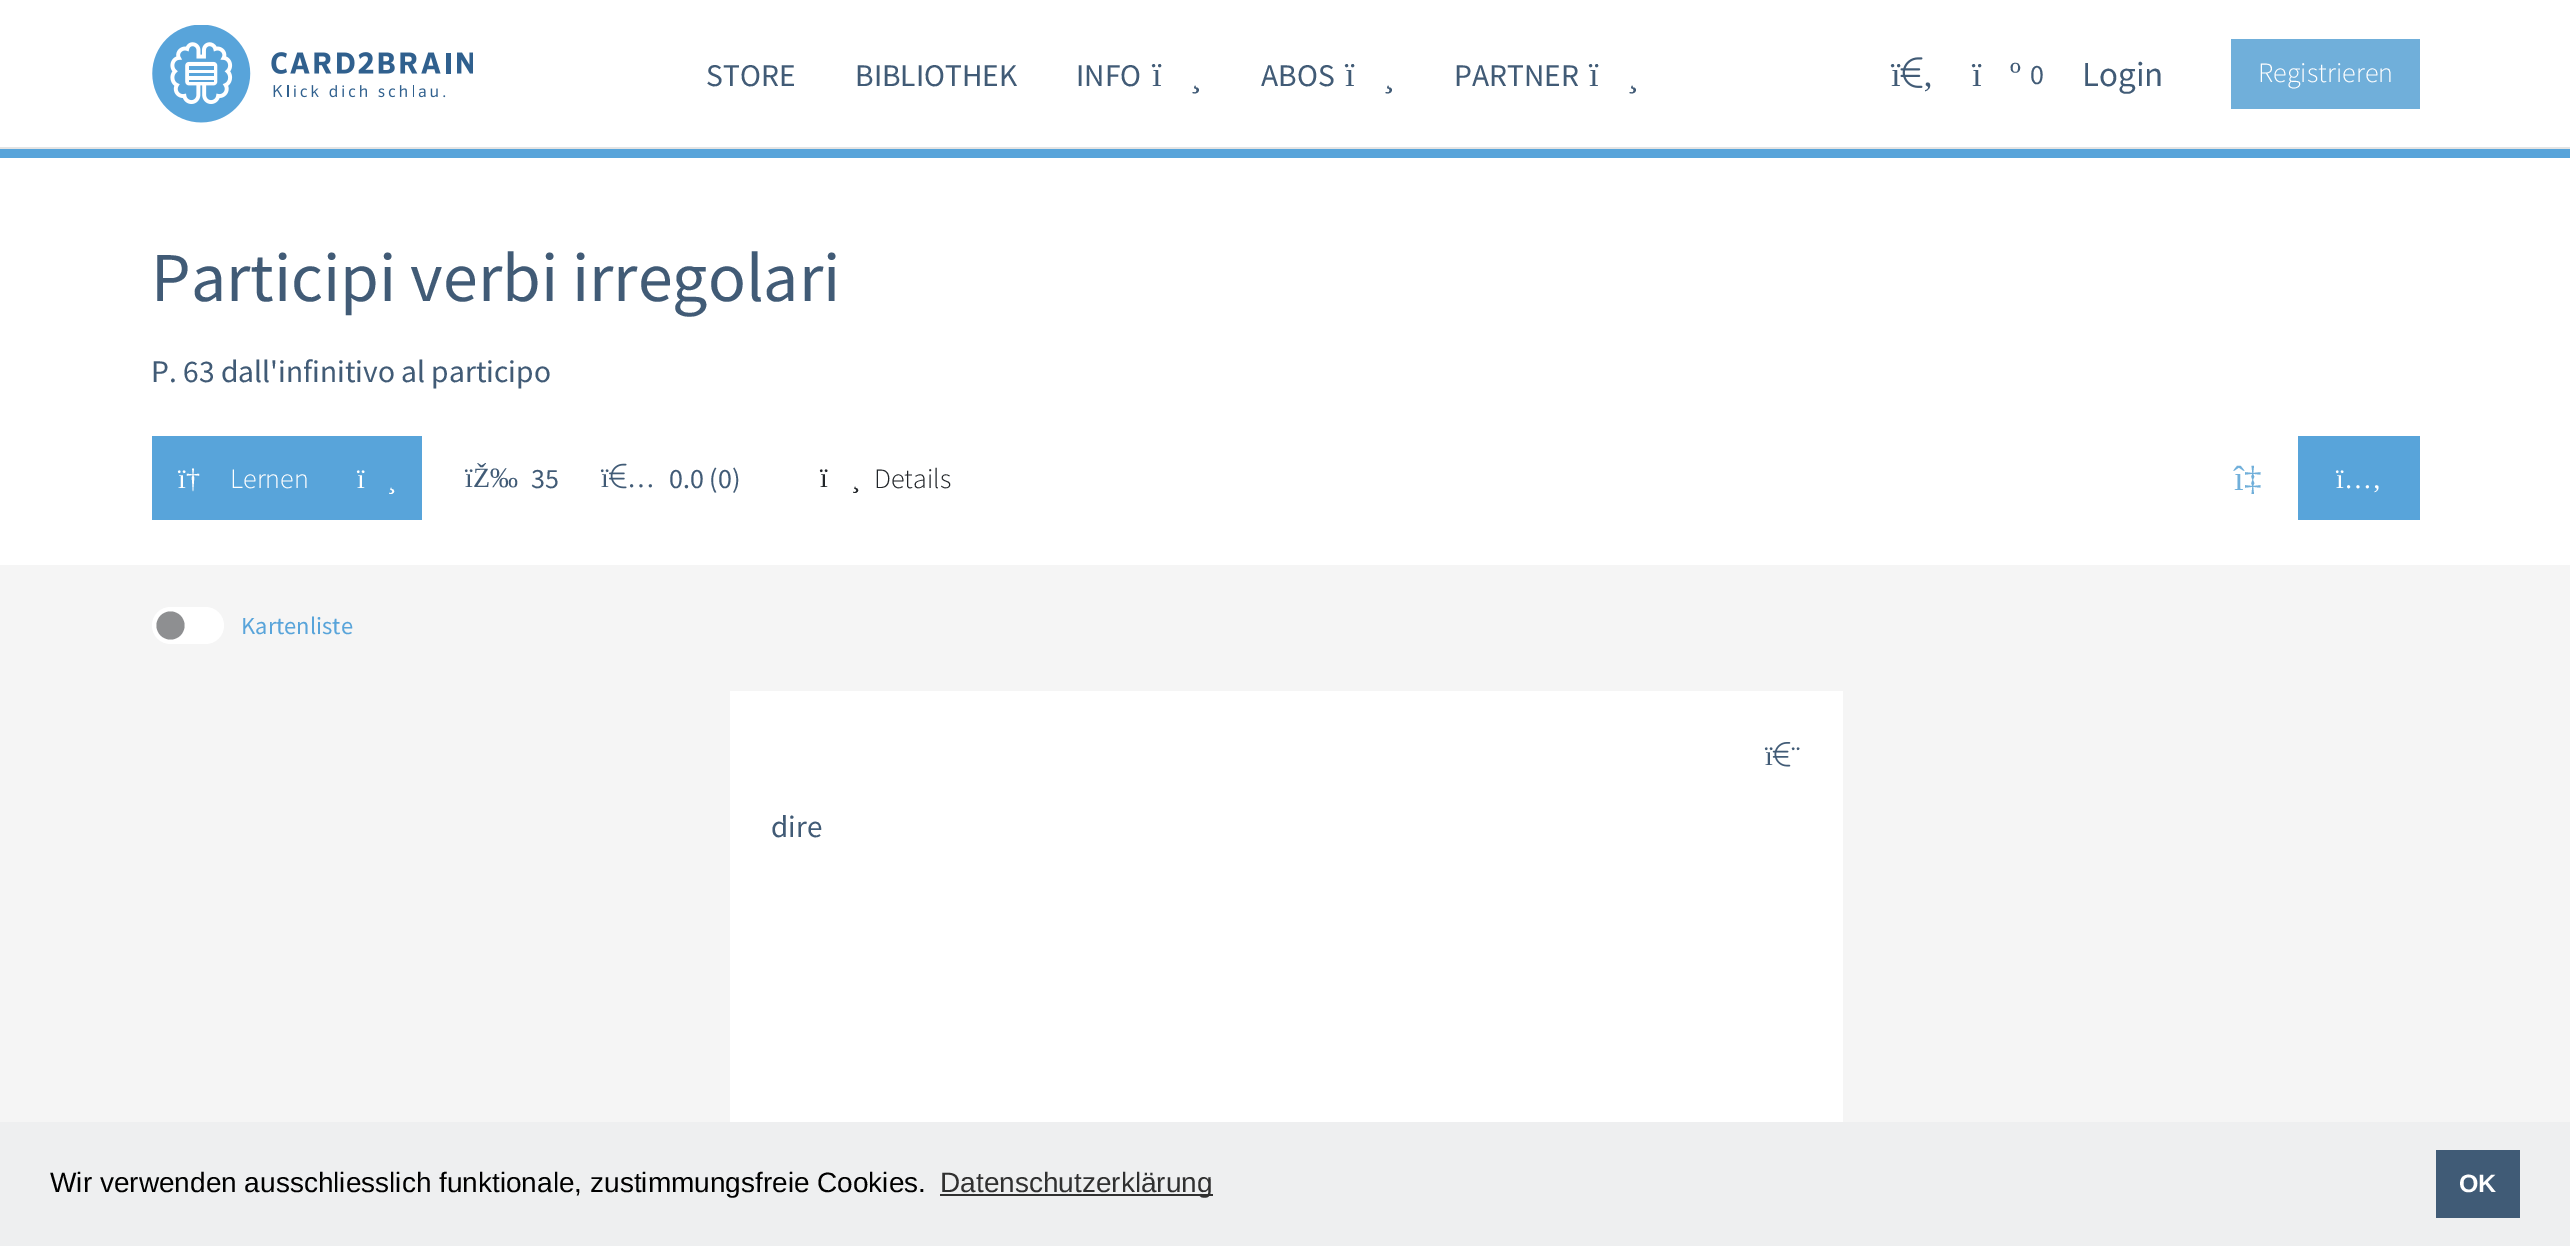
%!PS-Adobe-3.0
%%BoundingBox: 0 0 2570 1246
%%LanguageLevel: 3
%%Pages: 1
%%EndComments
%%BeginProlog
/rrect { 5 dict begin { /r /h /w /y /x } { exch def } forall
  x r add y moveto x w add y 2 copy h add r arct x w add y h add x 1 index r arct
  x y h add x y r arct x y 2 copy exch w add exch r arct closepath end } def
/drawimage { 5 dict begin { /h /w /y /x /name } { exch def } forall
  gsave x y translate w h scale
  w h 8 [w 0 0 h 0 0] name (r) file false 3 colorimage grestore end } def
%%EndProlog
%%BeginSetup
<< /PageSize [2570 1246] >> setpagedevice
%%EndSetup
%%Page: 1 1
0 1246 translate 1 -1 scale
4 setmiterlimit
1 setgray
0 0 2570 1246 rectfill
0.894 setgray
0 147 2570 2 rectfill
(images/1.raw) 152 25 321 98 drawimage
(images/2.raw) 1900 57 23 31 drawimage
0.439 0.686 0.855 setrgbcolor
2231 39 189 70 rectfill
0.345 0.643 0.855 setrgbcolor
0 149 2570 9 rectfill
152 436 270 84 rectfill
(images/3.raw) 609 463 18 26 drawimage
2298 436 122 84 rectfill
0.961 setgray
0 565 2570 557 rectfill
1 setgray
152 607 72 37 18.5 rrect fill
0.557 0.561 0.569 setrgbcolor
newpath 170.5 625.5 14 0 360 arc closepath fill
1 setgray
730 691 1113 431 rectfill
(images/4.raw) 1772 742 19 25 drawimage
0.933 0.937 0.941 setrgbcolor
0 1122 2570 124 rectfill
0.188 setgray
940 1194 273 2 rectfill
0.251 0.357 0.463 setrgbcolor
2436 1150 84 68 rectfill
/SourceSansPro-Regular [31.5 0 0 -31.5 0 0] selectfont
0.255 0.357 0.463 setrgbcolor
706 86 moveto (STORE) show
855 86 moveto (BIBLIOTHEK) show
1076 86 moveto (INFO) show
/LiberationSerif-Regular [35 0 0 -35 0 0] selectfont
1152 86 moveto (ï) show
1190 86 moveto (¸) show
/SourceSansPro-Regular [31.5 0 0 -31.5 0 0] selectfont
1261 86 moveto (ABOS) show
/LiberationSerif-Regular [35 0 0 -35 0 0] selectfont
1345 86 moveto (ï) show
1383 86 moveto (¸) show
/SourceSansPro-Regular [31.5 0 0 -31.5 0 0] selectfont
1454 86 moveto (PARTNER) show
/LiberationSerif-Regular [35 0 0 -35 0 0] selectfont
1589 86 moveto (ï) show
1627 86 moveto (¸) show
1891 86 moveto (ï) show
1922 86 moveto (‚) show
1972 86 moveto (ï) show
2010 86 moveto (º) show
/SourceSansPro-Regular [28 0 0 -28 0 0] selectfont
2030 84 moveto (0) show
/SourceSansPro-Regular [35 0 0 -35 0 0] selectfont
2082 86 moveto (Login) show
/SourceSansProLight-Light [28 0 0 -28 0 0] selectfont
1 setgray
2258 82 moveto (Registrieren) show
/SourceSansPro-Regular [70 0 0 -70 0 0] selectfont
0.255 0.357 0.463 setrgbcolor
151 301 moveto (Participi verbi irregolari) show
/SourceSansPro-Regular [31.5 0 0 -31.5 0 0] selectfont
151 382 moveto (P. 63 dall'infinitivo al participo) show
/LiberationSerif-Regular [28 0 0 -28 0 0] selectfont
1 setgray
178 488 moveto (ï†) show
/SourceSansProLight-Light [28 0 0 -28 0 0] selectfont
230 488 moveto (Lernen) show
/LiberationSerif-Regular [28 0 0 -28 0 0] selectfont
357 488 moveto (ï) show
387 488 moveto (¸) show
0.255 0.357 0.463 setrgbcolor
465 487 moveto (ïŽ‰) show
/SourceSansPro-Regular [28 0 0 -28 0 0] selectfont
531 488 moveto (35) show
/LiberationSerif-Regular [28 0 0 -28 0 0] selectfont
601 487 moveto (ï) show
627 487 moveto (…) show
/SourceSansPro-Regular [28 0 0 -28 0 0] selectfont
669 488 moveto (0.0 \(0\)) show
/LiberationSerif-Regular [28 0 0 -28 0 0] selectfont
0.129 0.145 0.161 setrgbcolor
820 487 moveto (ï) show
851 487 moveto (¸) show
/SourceSansProLight-Light [28 0 0 -28 0 0] selectfont
874 488 moveto (Details) show
/LiberationSerif-Regular [35 0 0 -35 0 0] selectfont
0.439 0.686 0.855 setrgbcolor
2234 490 moveto (î‡) show
/LiberationSerif-Regular [28 0 0 -28 0 0] selectfont
1 setgray
2336 488 moveto (ï…‚) show
/SourceSansPro-Regular [24.5 0 0 -24.5 0 0] selectfont
0.345 0.643 0.855 setrgbcolor
241 634 moveto (Kartenliste) show
/LiberationSerif-Regular [28 0 0 -28 0 0] selectfont
0.255 0.357 0.463 setrgbcolor
1765 765 moveto (ï) show
1791 765 moveto (¨) show
/SourceSansPro-Regular [31 0 0 -31 0 0] selectfont
771 837 moveto (dire) show
/LiberationSans-Regular [28 0 0 -28 0 0] selectfont
0 setgray
50 1192 moveto (Wir verwenden ausschliesslich funktionale, zustimmungsfreie Cookies.) show
0.188 setgray
940 1192 moveto (Datenschutzerklärung) show
/LiberationSans-Bold [25 0 0 -25 0 0] selectfont
1 setgray
2459 1192 moveto (OK) show
showpage
%%EOF
